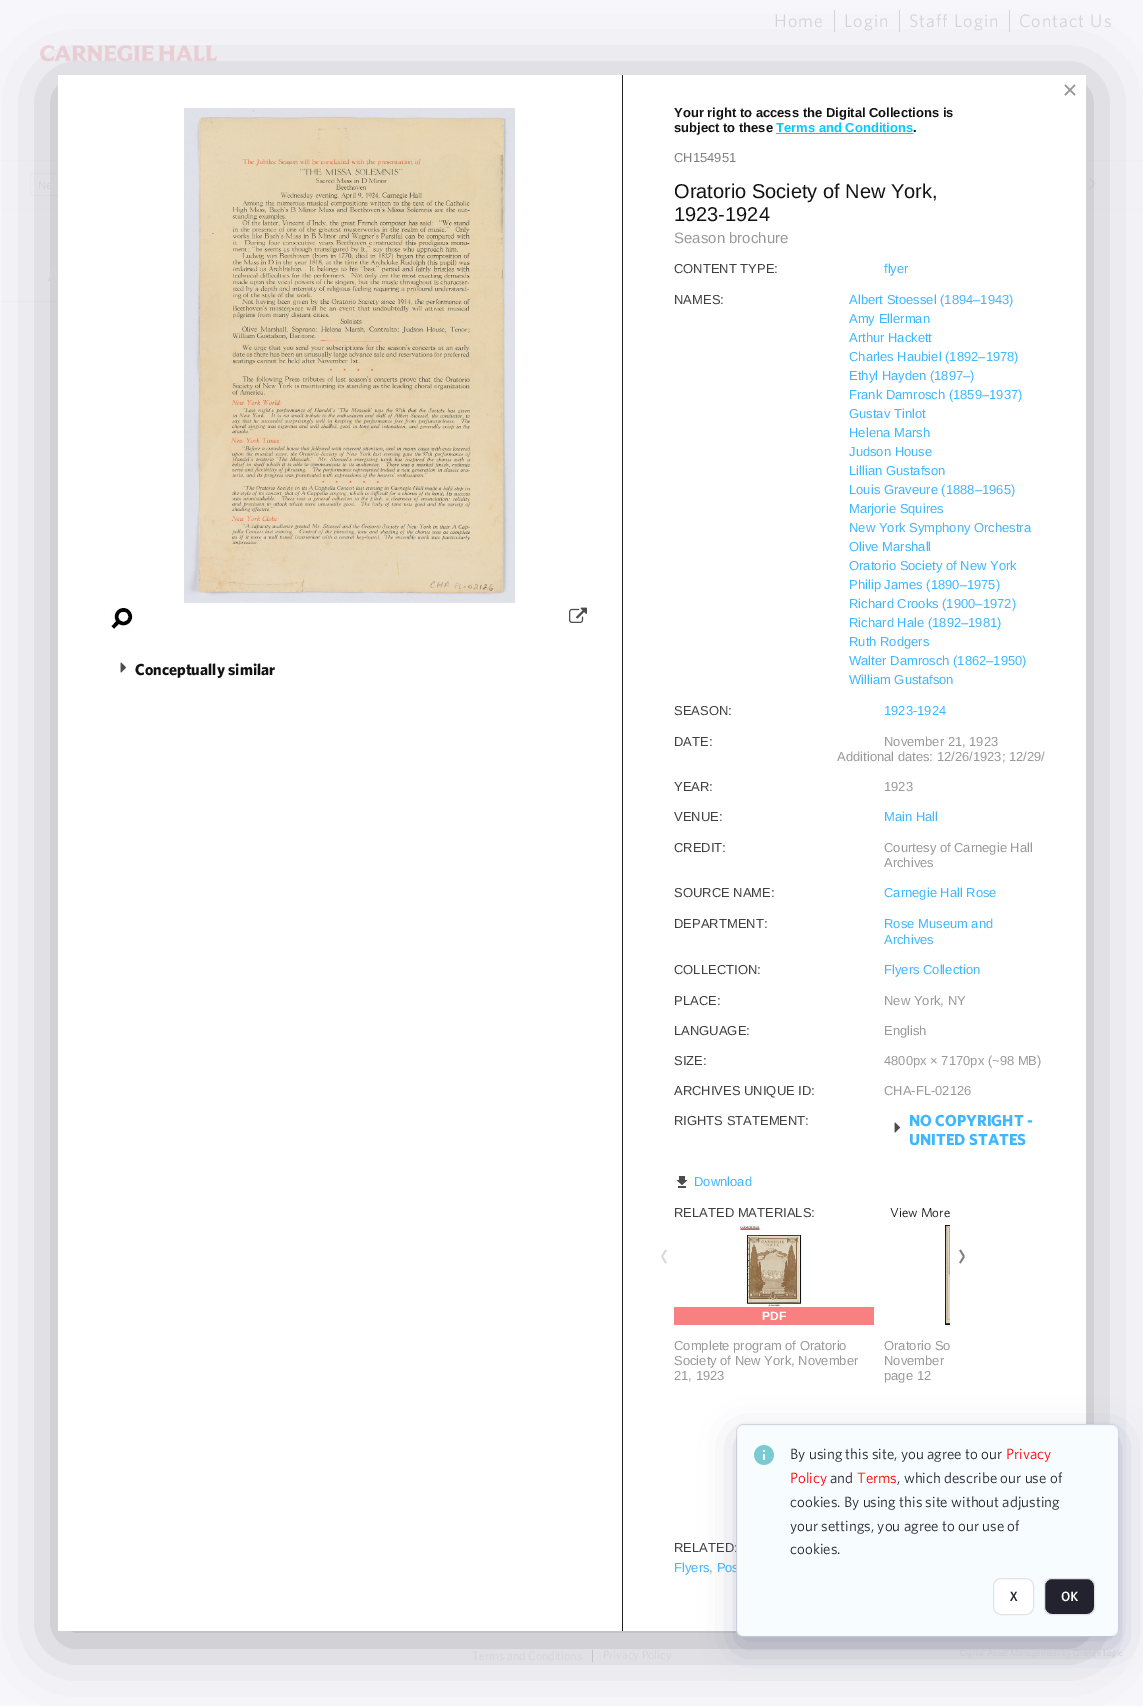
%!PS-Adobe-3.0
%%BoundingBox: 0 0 1143 1706
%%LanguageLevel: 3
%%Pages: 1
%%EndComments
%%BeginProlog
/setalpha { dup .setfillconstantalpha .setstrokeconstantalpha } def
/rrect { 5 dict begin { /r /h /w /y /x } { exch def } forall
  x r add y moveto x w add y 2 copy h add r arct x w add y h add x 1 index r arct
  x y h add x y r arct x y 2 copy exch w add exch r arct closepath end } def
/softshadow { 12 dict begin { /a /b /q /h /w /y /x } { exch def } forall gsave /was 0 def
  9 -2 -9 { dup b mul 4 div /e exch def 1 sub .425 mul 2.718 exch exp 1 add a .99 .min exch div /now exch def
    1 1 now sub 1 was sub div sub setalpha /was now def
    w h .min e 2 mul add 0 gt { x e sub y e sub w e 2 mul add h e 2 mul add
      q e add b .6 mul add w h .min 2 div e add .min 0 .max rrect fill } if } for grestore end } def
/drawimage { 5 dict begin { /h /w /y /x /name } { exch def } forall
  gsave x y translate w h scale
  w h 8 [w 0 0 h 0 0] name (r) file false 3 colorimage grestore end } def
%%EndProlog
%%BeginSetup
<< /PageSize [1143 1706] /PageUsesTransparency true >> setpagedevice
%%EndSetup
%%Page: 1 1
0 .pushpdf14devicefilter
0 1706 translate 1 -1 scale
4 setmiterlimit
0.969 0.969 0.984 setrgbcolor
0 0 1143 1706 rectfill
0.839 0.839 0.851 setrgbcolor
834 10 1 22 rectfill
899 10 1 22 rectfill
1009 10 1 22 rectfill
(images/1.raw) 40 45 177 17 drawimage
0.961 0.961 0.973 setrgbcolor
0 160 1143 1 rectfill
0 209 1143 1 rectfill
0.949 0.949 0.961 setrgbcolor
30.5 173.5 89 22 2.5 rrect stroke
(images/2.raw) 1089 178 7 11 drawimage
0.953 0.953 0.969 setrgbcolor
0 301 58 1 rectfill
0.839 0.839 0.851 setrgbcolor
592 1650 1 12 rectfill
0 setgray
58 85 1028 1556 0 32 0.3 softshadow
/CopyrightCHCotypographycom-Light [18 0 0 -18 0 0] selectfont
0.831 0.831 0.843 setrgbcolor
774 27 moveto 1 0 (Home) ashow
844 27 moveto 1 0 (Login) ashow
909 27 moveto 1 0 (Staff Login) ashow
1019 27 moveto 1 0 (Contact Us) ashow
/LiberationSans-Regular [11 0 0 -11 0 0] selectfont
38 189 moveto (New) show
/FiraSans-Regular [18 0 0 -18 0 0] selectfont
48 281 moveto (A) show
/CopyrightCHCotypographycom-Light [12 0 0 -12 0 0] selectfont
472 1660 moveto (Terms and Conditions) show
603 1659 moveto (Privacy Policy) show
/CopyrightCHCotypographycom-Light [9 0 0 -9 0 0] selectfont
960 1656 moveto (Digital Asset Management by Orange Logic) show
1 setgray
58 75 1028 1556 rectfill
(images/3.raw) 1064 84 12 12 drawimage
(images/4.raw) 184 108 331 495 drawimage
(images/5.raw) 111 608 23 22 drawimage
(images/6.raw) 569 607 18 16 drawimage
(images/7.raw) 120 662 6 11 drawimage
/CopyrightCHCotypographycom-Regular [16 0 0 -16 0 0] selectfont
0.071 setgray
135 675 moveto (Conceptually similar) show
0.129 setgray
622 75 1 1556 rectfill
/LiberationSans-Bold [13 0 0 -13 0 0] selectfont
0.071 setgray
674 117 moveto (Your right to access the Digital Collections is) show
674 132 moveto (subject to these) show
0 0.8 1 setrgbcolor
776 132 moveto (Terms and Conditions) show
0.071 setgray
913 132 moveto (.) show
0 0.8 1 setrgbcolor
776 133 137 1 rectfill
/LiberationSans-Regular [13 0 0 -13 0 0] selectfont
0.502 setgray
674 162 moveto (CH154951) show
/LiberationSans-Regular [20 0 0 -20 0 0] selectfont
0.071 setgray
674 198 moveto (Oratorio Society of New York,) show
674 221 moveto (1923-1924) show
/LiberationSans-Regular [15 0 0 -15 0 0] selectfont
0.6 setgray
674 243 moveto (Season brochure) show
/LiberationSans-Regular [13 0 0 -13 0 0] selectfont
0.251 setgray
674 273 moveto (CONTENT TYPE:) show
0.239 0.718 1 setrgbcolor
884 273 moveto (flyer) show
0.251 setgray
674 304 moveto (NAMES:) show
0.239 0.718 1 setrgbcolor
849 304 moveto (Albert Stoessel \(1894–1943\)) show
849 323 moveto (Amy Ellerman) show
849 342 moveto (Arthur Hackett) show
849 361 moveto (Charles Haubiel \(1892–1978\)) show
849 380 moveto (Ethyl Hayden \(1897–\)) show
849 399 moveto (Frank Damrosch \(1859–1937\)) show
849 418 moveto (Gustav Tinlot) show
849 437 moveto (Helena Marsh) show
849 456 moveto (Judson House) show
849 475 moveto (Lillian Gustafson) show
849 494 moveto (Louis Graveure \(1888–1965\)) show
849 513 moveto (Marjorie Squires) show
849 532 moveto (New York Symphony Orchestra) show
849 551 moveto (Olive Marshall) show
849 570 moveto (Oratorio Society of New York) show
849 589 moveto (Philip James \(1890–1975\)) show
849 608 moveto (Richard Crooks \(1900–1972\)) show
849 627 moveto (Richard Hale \(1892–1981\)) show
849 646 moveto (Ruth Rodgers) show
849 665 moveto (Walter Damrosch \(1862–1950\)) show
849 684 moveto (William Gustafson) show
0.251 setgray
674 715 moveto (SEASON:) show
0.239 0.718 1 setrgbcolor
884 715 moveto (1923-1924) show
0.251 setgray
674 746 moveto (DATE:) show
0.6 setgray
884 746 moveto (November 21, 1923) show
837 761 moveto (Additional dates: 12/26/1923; 12/29/) show
0.251 setgray
674 791 moveto (YEAR:) show
0.6 setgray
884 791 moveto (1923) show
0.251 setgray
674 821 moveto (VENUE:) show
0.239 0.718 1 setrgbcolor
884 821 moveto (Main Hall) show
0.251 setgray
674 852 moveto (CREDIT:) show
0.6 setgray
884 852 moveto (Courtesy of Carnegie Hall) show
884 867 moveto (Archives) show
0.251 setgray
674 897 moveto (SOURCE NAME:) show
0.239 0.718 1 setrgbcolor
884 897 moveto (Carnegie Hall Rose) show
0.251 setgray
674 928 moveto (DEPARTMENT:) show
0.239 0.718 1 setrgbcolor
884 928 moveto (Rose Museum and) show
884 944 moveto (Archives) show
0.251 setgray
674 974 moveto (COLLECTION:) show
0.239 0.718 1 setrgbcolor
884 974 moveto (Flyers Collection) show
0.251 setgray
674 1005 moveto (PLACE:) show
0.6 setgray
884 1005 moveto (New York, NY) show
0.251 setgray
674 1035 moveto (LANGUAGE:) show
0.6 setgray
884 1035 moveto (English) show
0.251 setgray
674 1065 moveto (SIZE:) show
0.6 setgray
884 1065 moveto (4800px × 7170px \(~98 MB\)) show
0.251 setgray
674 1095 moveto (ARCHIVES UNIQUE ID:) show
0.6 setgray
884 1095 moveto (CHA-FL-02126) show
0.251 setgray
674 1125 moveto (RIGHTS STATEMENT:) show
(images/7.raw) 894 1122 6 11 drawimage
/CopyrightCHCotypographycom-Regular [16 0 0 -16 0 0] selectfont
0.239 0.718 1 setrgbcolor
909 1126 moveto (NO COPYRIGHT -) show
909 1145 moveto (UNITED STATES) show
(images/8.raw) 676 1176 12 12 drawimage
/LiberationSans-Regular [13 0 0 -13 0 0] selectfont
694 1186 moveto (Download) show
0.251 setgray
674 1217 moveto (RELATED MATERIALS:) show
/CopyrightCHCotypographycom-Light [13 0 0 -13 0 0] selectfont
0.071 setgray
890 1217 moveto (View More) show
(images/9.raw) 661 1249 6 15 drawimage
(images/10.raw) 959 1249 6 15 drawimage
(images/11.raw) 739 1225 63 82 drawimage
0.976 0.502 0.502 setrgbcolor
674 1307 200 18 rectfill
/LiberationSans-Bold [12 0 0 -12 0 0] selectfont
1 setgray
762 1320 moveto (PDF) show
/LiberationSans-Regular [13 0 0 -13 0 0] selectfont
0.6 setgray
674 1350 moveto (Complete program of Oratorio) show
674 1365 moveto (Society of New York, November) show
674 1380 moveto (21, 1923) show
(images/12.raw) 945 1225 5 100 drawimage
884 1350 moveto (Oratorio So) show
884 1365 moveto (November) show
884 1380 moveto (page 12) show
0.251 setgray
674 1552 moveto (RELATED:) show
0.239 0.718 1 setrgbcolor
674 1572 moveto (Flyers, Pos) show
0.969 0.992 0.996 setrgbcolor
736.5 1424.5 382 212 7.5 rrect gsave fill grestore
0.886 0.886 0.914 setrgbcolor
stroke
gsave
newpath 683 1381 moveto 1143 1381 lineto 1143 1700 lineto 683 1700 lineto closepath 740 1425 moveto 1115 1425 lineto 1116.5 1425 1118 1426.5 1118 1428 curveto 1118 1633 lineto 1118 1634.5 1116.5 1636 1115 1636 curveto 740 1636 lineto 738.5 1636 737 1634.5 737 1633 curveto 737 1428 lineto 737 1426.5 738.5 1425 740 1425 curveto closepath eoclip newpath
0.302 0.302 0.529 setrgbcolor
737 1435 381 211 3 17.5 0.3 softshadow
grestore
(images/13.raw) 754 1445 20 20 drawimage
/CopyrightCHCotypographycom-Light [15 0 0 -15 0 0] selectfont
0.137 0.137 0.184 setrgbcolor
790 1459 moveto (By using this site, you agree to our) show
1 0 0 setrgbcolor
1006 1459 moveto (Privacy) show
790 1483 moveto (Policy) show
0.137 0.137 0.184 setrgbcolor
830 1483 moveto (and) show
1 0 0 setrgbcolor
857 1483 moveto (Terms) show
0.137 0.137 0.184 setrgbcolor
897 1483 moveto (, which describe our use of) show
790 1507 moveto (cookies. By using this site without adjusting) show
790 1531 moveto (your settings, you agree to our use of) show
790 1554 moveto (cookies.) show
1 setgray
993.5 1578.5 40 36 7.5 rrect gsave fill grestore
0.886 0.886 0.914 setrgbcolor
stroke
/FiraSans-Bold [13 0 0 -13 0 0] selectfont
0.137 0.137 0.184 setrgbcolor
1010 1601 moveto (X) show
1044.5 1578.5 50 36 7.5 rrect gsave fill grestore
0.886 0.886 0.914 setrgbcolor
stroke
1 setgray
1061 1601 moveto (OK) show
.poppdf14devicefilter showpage
%%EOF
